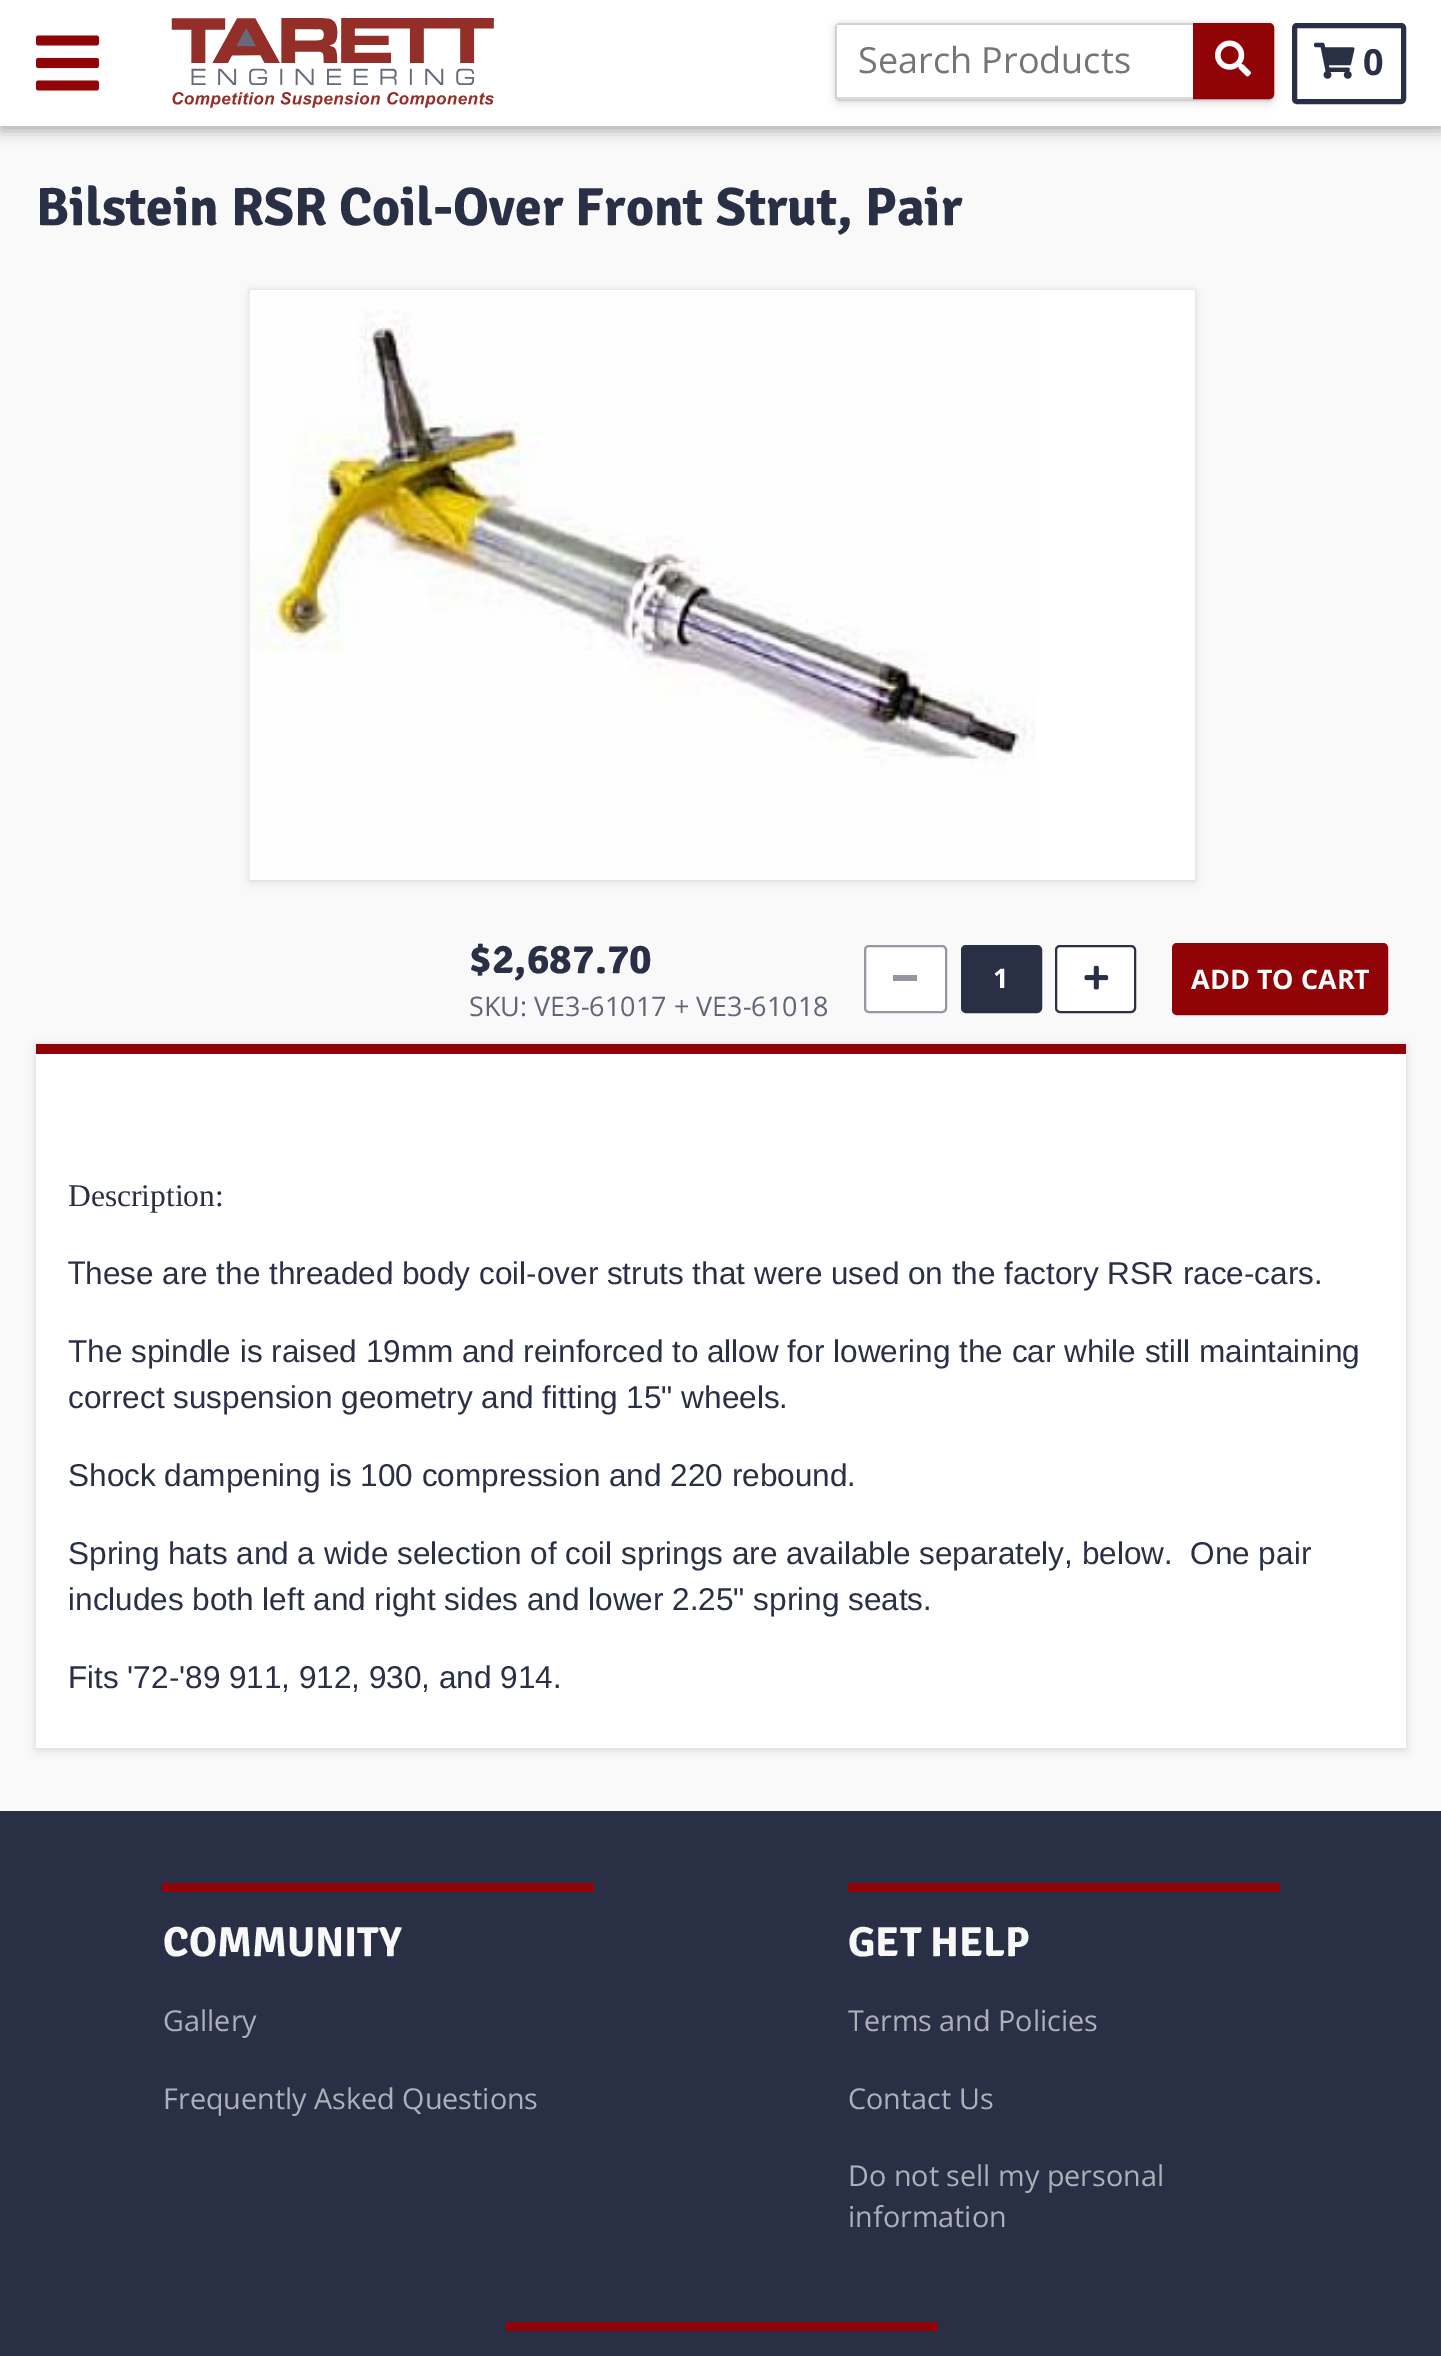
%!PS-Adobe-3.0
%%BoundingBox: 0 0 1441 2356
%%LanguageLevel: 3
%%Pages: 1
%%EndComments
%%BeginProlog
/setalpha { dup .setfillconstantalpha .setstrokeconstantalpha } def
/rrect { 5 dict begin { /r /h /w /y /x } { exch def } forall
  x r add y moveto x w add y 2 copy h add r arct x w add y h add x 1 index r arct
  x y h add x y r arct x y 2 copy exch w add exch r arct closepath end } def
/softshadow { 12 dict begin { /a /b /q /h /w /y /x } { exch def } forall gsave /was 0 def
  9 -2 -9 { dup b mul 4 div /e exch def 1 sub .425 mul 2.718 exch exp 1 add a .99 .min exch div /now exch def
    1 1 now sub 1 was sub div sub setalpha /was now def
    w h .min e 2 mul add 0 gt { x e sub y e sub w e 2 mul add h e 2 mul add
      q e add b .6 mul add w h .min 2 div e add .min 0 .max rrect fill } if } for grestore end } def
/drawimage { 5 dict begin { /h /w /y /x /name } { exch def } forall
  gsave x y translate w h scale
  w h 8 [w 0 0 h 0 0] name (r) file false 3 colorimage grestore end } def
%%EndProlog
%%BeginSetup
<< /PageSize [1441 2356] /PageUsesTransparency true >> setpagedevice
%%EndSetup
%%Page: 1 1
0 .pushpdf14devicefilter
0 2356 translate 1 -1 scale
4 setmiterlimit
0.976 0.976 0.98 setrgbcolor
0 0 1441 2356 rectfill
0 setgray
0 5 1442 126 0 7 0.3 softshadow
1 setgray
0 0 1441 126 rectfill
(images/1.raw) 36 35 63 56 drawimage
(images/2.raw) 171 18 323 90 drawimage
0.161 0.184 0.271 setrgbcolor
835 25 439 79 5 4.5 0.1 softshadow
835 23 439 78 5 2 0.1 softshadow
0.82 setgray
2 setlinewidth
836 24 437 76 4 rrect stroke
1 setgray
837 25 356 72 rectfill
0.565 0.016 0.031 setrgbcolor
newpath 1195.5 25.5 moveto 1269 25.5 lineto 1270.5 25.5 1271.5 26.5 1271.5 28 curveto 1271.5 94 lineto 1271.5 95.5 1270.5 96.5 1269 96.5 curveto 1195.5 96.5 lineto closepath gsave fill grestore
5 setlinewidth
stroke
(images/3.raw) 1215 40 36 37 drawimage
0.161 0.184 0.271 setrgbcolor
1294.5 25.5 109 76 2.5 rrect stroke
(images/4.raw) 1314 42 41 37 drawimage
250 293 945 589 0 4.5 0.1 softshadow
250 290 945 590 0 2 0.1 softshadow
1 setgray
250 290 945 590 rectfill
(images/5.raw) 249 294 787 585 drawimage
864 945 83 68 5 rrect fill
0.5 setalpha
0.161 0.184 0.271 setrgbcolor
2 setlinewidth
865 946 81 66 4 rrect stroke
1 setalpha
0.58 0.592 0.635 setrgbcolor
893 975 24 6 rectfill
0.161 0.184 0.271 setrgbcolor
962 946 79 66 4 rrect gsave fill grestore
stroke
1 setgray
1056 946 79 66 4 rrect gsave fill grestore
0.161 0.184 0.271 setrgbcolor
stroke
(images/6.raw) 1084 965 25 25 drawimage
0.565 0.016 0.031 setrgbcolor
1174.5 945.5 211 67 2.5 rrect gsave fill grestore
5 setlinewidth
stroke
0.161 0.184 0.271 setrgbcolor
36 1046 1370 705 0 4.5 0.1 softshadow
36 1044 1370 704 0 2 0.1 softshadow
1 setgray
36 1054 1370 694 rectfill
0.565 0.016 0.031 setrgbcolor
36 1044 1370 10 rectfill
0.161 0.184 0.271 setrgbcolor
0 1811 1441 545 rectfill
0.565 0.016 0.031 setrgbcolor
162 1883 432 9 rectfill
848 1883 432 9 rectfill
506 2322 432 9 rectfill
/OpenSans-Regular [36 0 0 -36 0 0] selectfont
0.459 setgray
858 73 moveto (Search Products) show
/OpenSans-Bold [36 0 0 -36 0 0] selectfont
0.161 0.184 0.271 setrgbcolor
1363 75 moveto (0) show
/Signika-Bold [54 0 0 -54 0 0] selectfont
36 225 moveto (Bilstein RSR Coil-Over Front Strut, Pair) show
/Signika-Bold [42 0 0 -42 0 0] selectfont
469 973 moveto ($2,687.70) show
/OpenSans-Regular [27 0 0 -27 0 0] selectfont
0.38 0.4 0.463 setrgbcolor
469 1016 moveto (SKU: VE3-61017 + VE3-61018) show
/OpenSans-Bold [27 0 0 -27 0 0] selectfont
1 setgray
993 988 moveto (1) show
1191 989 moveto (ADD TO CART) show
/LiberationSerif-Regular [31.5 0 0 -31.5 0 0] selectfont
0.161 0.184 0.271 setrgbcolor
68 1206 moveto (Description:) show
/OpenSans-Regular [31.5 0 0 -31.5 0 0] selectfont
68 1284 moveto (T) show
/LiberationSans-Regular [31.5 0 0 -31.5 0 0] selectfont
85 1284 moveto (hese are the threaded body coil-over struts that were used on the factory RSR race-cars.) show
68 1362 moveto (The spindle is raised 19mm and reinforced to allow for lowering the car while still maintaining) show
68 1408 moveto (correct suspension geometry and fitting 15" wheels.) show
68 1486 moveto (Shock dampening is 100 compression and 220 rebound.) show
68 1564 moveto (Spring hats and a wide selection of coil springs are available separately, below.  One pair) show
68 1610 moveto (includes both left and right sides and lower 2.25" spring seats.) show
68 1688 moveto (Fits '72-'89 911, 912, 930, and 914.) show
/Signika-Bold [42 0 0 -42 0 0] selectfont
0.973 0.973 0.976 setrgbcolor
163 1956 moveto (COMMUNITY) show
/OpenSans-Regular [28.75 0 0 -28.75 0 0] selectfont
0.678 0.69 0.722 setrgbcolor
163 2031 moveto (Gallery) show
163 2109 moveto (Frequently Asked Questions) show
/Signika-Bold [42 0 0 -42 0 0] selectfont
0.973 0.973 0.976 setrgbcolor
848 1956 moveto (GET HELP) show
/OpenSans-Regular [28.75 0 0 -28.75 0 0] selectfont
0.678 0.69 0.722 setrgbcolor
848 2031 moveto (Terms and Policies) show
848 2109 moveto (Contact Us) show
848 2186 moveto (Do not sell my personal) show
848 2227 moveto (information) show
.poppdf14devicefilter showpage
%%EOF
